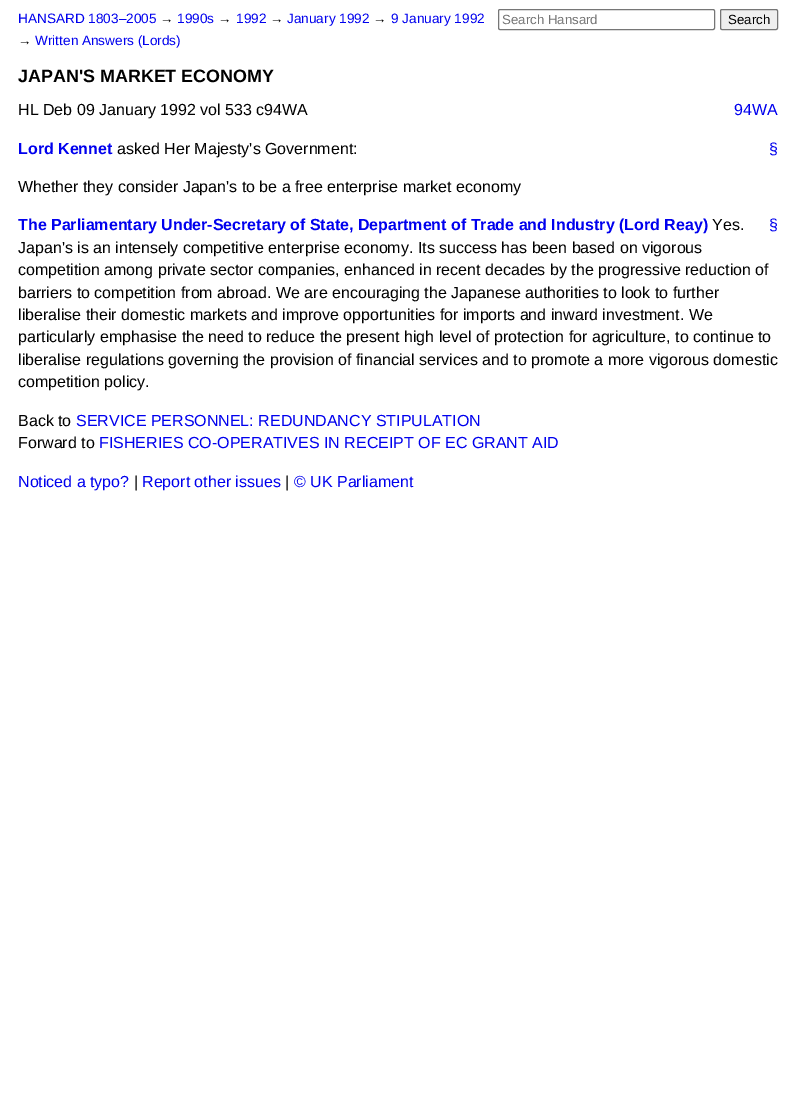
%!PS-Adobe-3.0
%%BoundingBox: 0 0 796 1101
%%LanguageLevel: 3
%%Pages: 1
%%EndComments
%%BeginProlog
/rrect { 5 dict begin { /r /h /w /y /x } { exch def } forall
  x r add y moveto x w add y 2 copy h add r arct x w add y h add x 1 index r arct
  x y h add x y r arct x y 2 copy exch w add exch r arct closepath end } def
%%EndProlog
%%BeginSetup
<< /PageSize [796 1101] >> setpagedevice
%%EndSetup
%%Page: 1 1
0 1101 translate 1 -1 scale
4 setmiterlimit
1 setgray
0 0 796 1101 rectfill
0.463 setgray
498.5 9.5 216 20 1.5 rrect stroke
0.937 setgray
720.5 9.5 57 20 1.5 rrect gsave fill grestore
0.463 setgray
stroke
/LiberationSans-Regular [13.6 0 0 -13.6 0 0] selectfont
0 0 0.933 setrgbcolor
18 23 moveto (HANSARD 1803–2005) show
0 setgray
160 23 moveto (→) show
0 0 0.933 setrgbcolor
177 23 moveto (1990s) show
0 setgray
218 23 moveto (→) show
0 0 0.933 setrgbcolor
236 23 moveto (1992) show
0 setgray
270 23 moveto (→) show
0 0 0.933 setrgbcolor
287 23 moveto (January 1992) show
0 setgray
373 23 moveto (→) show
0 0 0.933 setrgbcolor
391 23 moveto (9 January 1992) show
0 setgray
18 45 moveto (→) show
0 0 0.933 setrgbcolor
35 45 moveto (Written Answers \(Lords\)) show
/LiberationSans-Regular [13.25 0 0 -13.25 0 0] selectfont
0.459 setgray
502 24 moveto (Search Hansard) show
0 setgray
728 24 moveto (Search) show
/LiberationSans-Bold [17.9 0 0 -17.9 0 0] selectfont
18 82 moveto (JAPAN'S MARKET ECONOMY) show
/LiberationSans-Regular [16 0 0 -16 0 0] selectfont
18 115 moveto (HL Deb 09 January 1992 vol 533 c94WA) show
0 0 0.933 setrgbcolor
734 115 moveto (94WA) show
/LiberationSans-Bold [16 0 0 -16 0 0] selectfont
18 154 moveto (Lord Kennet) show
/LiberationSans-Regular [16 0 0 -16 0 0] selectfont
0 setgray
117 154 moveto (asked Her Majesty's Government:) show
0 0 0.933 setrgbcolor
769 154 moveto (§) show
0 setgray
18 192 moveto (Whether they consider Japan's to be a free enterprise market economy) show
/LiberationSans-Bold [16 0 0 -16 0 0] selectfont
0 0 0.933 setrgbcolor
18 230 moveto (The Parliamentary Under-Secretary of State, Department of Trade and Industry \(Lord Reay\)) show
/LiberationSans-Regular [16 0 0 -16 0 0] selectfont
0 setgray
712 230 moveto (Yes.) show
0 0 0.933 setrgbcolor
769 230 moveto (§) show
0 setgray
18 253 moveto (Japan's is an intensely competitive enterprise economy. Its success has been based on vigorous) show
18 275 moveto (competition among private sector companies, enhanced in recent decades by the progressive reduction of) show
18 298 moveto (barriers to competition from abroad. We are encouraging the Japanese authorities to look to further) show
18 320 moveto (liberalise their domestic markets and improve opportunities for imports and inward investment. We) show
18 342 moveto (particularly emphasise the need to reduce the present high level of protection for agriculture, to continue to) show
18 365 moveto (liberalise regulations governing the provision of financial services and to promote a more vigorous domestic) show
18 387 moveto (competition policy.) show
18 426 moveto (Back to) show
0 0 0.933 setrgbcolor
76 426 moveto (SERVICE PERSONNEL: REDUNDANCY STIPULATION) show
0 setgray
18 448 moveto (Forward to) show
0 0 0.933 setrgbcolor
99 448 moveto (FISHERIES CO-OPERATIVES IN RECEIPT OF EC GRANT AID) show
18 487 moveto (Noticed a typo?) show
0 setgray
134 487 moveto (|) show
0 0 0.933 setrgbcolor
142 487 moveto (Report other issues) show
0 setgray
285 487 moveto (|) show
0 0 0.933 setrgbcolor
294 487 moveto (© UK Parliament) show
showpage
%%EOF
